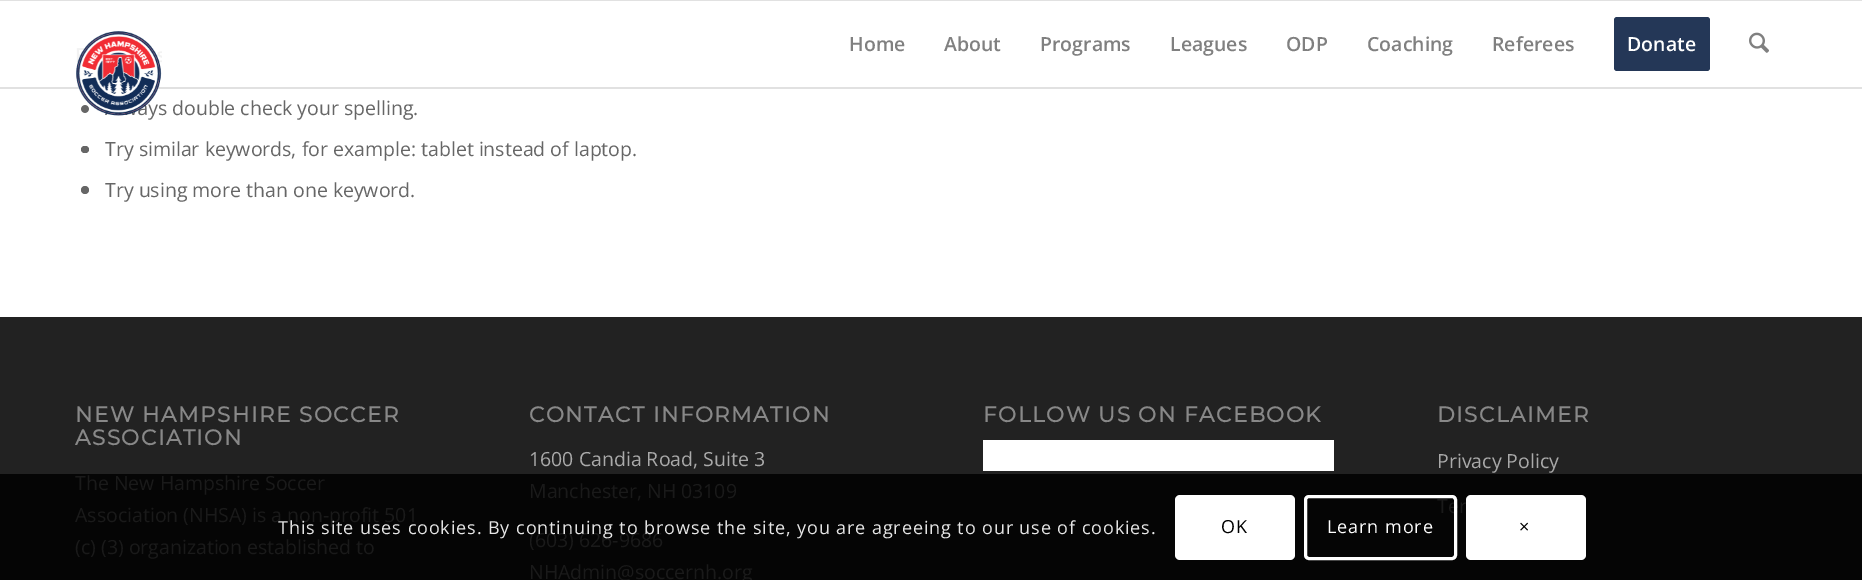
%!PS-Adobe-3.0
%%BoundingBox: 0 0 1862 580
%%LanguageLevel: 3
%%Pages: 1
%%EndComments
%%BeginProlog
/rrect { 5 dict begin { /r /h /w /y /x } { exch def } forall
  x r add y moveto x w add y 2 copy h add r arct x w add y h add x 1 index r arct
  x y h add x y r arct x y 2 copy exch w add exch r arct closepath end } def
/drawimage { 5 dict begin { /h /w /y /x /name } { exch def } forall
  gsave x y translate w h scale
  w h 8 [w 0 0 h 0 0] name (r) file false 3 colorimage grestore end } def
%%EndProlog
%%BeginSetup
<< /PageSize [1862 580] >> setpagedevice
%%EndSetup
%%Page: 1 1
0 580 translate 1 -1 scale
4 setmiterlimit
1 setgray
0 0 1862 580 rectfill
0.882 setgray
0 0 1862 1 rectfill
0 87 1862 2 rectfill
0.141 0.216 0.341 setrgbcolor
1614 17 96 54 3 rrect fill
(images/2.raw) 1749 32 20 21 drawimage
0.4 setgray
newpath 85 109 4 0 360 arc closepath fill
81 146 8 7 3.5 rrect fill
newpath 85 190 4 0 360 arc closepath fill
0.133 setgray
0 317 1862 157 rectfill
0.02 setgray
0 474 1862 106 rectfill
1 setgray
983 440 351 31 rectfill
1175 495 120 65 5 rrect fill
/OpenSans-SemiBold [19.5 0 0 -19.5 0 0] selectfont
0.502 setgray
849 51 moveto (Home) show
944 51 moveto (About) show
1040 51 moveto (Programs) show
1170 51 moveto (Leagues) show
1286 51 moveto (ODP) show
1367 51 moveto (Coaching) show
1492 51 moveto (Referees) show
1 setgray
1627 51 moveto (Donate) show
/OpenSans-Regular [19.5 0 0 -19.5 0 0] selectfont
0.4 setgray
137 115 moveto (ays double check your spelling.) show
(images/1.raw) 76 31 86 85 drawimage
105 156 moveto (Try similar keywords, for example: tablet instead of laptop.) show
105 197 moveto (Try using more than one keyword.) show
/Montserrat-Bold [21.5 0 0 -21.5 0 0] selectfont
0.533 setgray
75 422 moveto 1.5 0 (NEW HAMPSHIRE SOCCER) ashow
75 445 moveto 1.5 0 (ASSOCIATION) ashow
/OpenSans-Regular [19.5 0 0 -19.5 0 0] selectfont
0.102 setgray
75 490 moveto (The New Hampshire Soccer) show
75 522 moveto (Association \(NHSA\) is a non-profit 501) show
75 554 moveto (\(c\) \(3\) organization established to) show
/Montserrat-Bold [21.5 0 0 -21.5 0 0] selectfont
0.533 setgray
529 422 moveto 1.5 0 (CONTACT INFORMATION) ashow
/OpenSans-Regular [19.5 0 0 -19.5 0 0] selectfont
0.667 setgray
529 466 moveto (1600 Candia Road, Suite 3) show
0.102 setgray
529 498 moveto (Manchester, NH 03109) show
gsave
530 386 351 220 rectclip
529 547 moveto (\(603\) 626-9686) show
grestore
529 579 moveto (NHAdmin@soccernh.org) show
/Montserrat-Bold [21.5 0 0 -21.5 0 0] selectfont
0.533 setgray
983 422 moveto 1.5 0 (FOLLOW US ON FACEBOOK) ashow
1437 422 moveto 1.5 0 (DISCLAIMER) ashow
/OpenSans-Regular [19.5 0 0 -19.5 0 0] selectfont
0.667 setgray
1437 468 moveto (Privacy Policy) show
0.102 setgray
1437 513 moveto (Ter) show
/OpenSans-Regular [18 0 0 -18 0 0] selectfont
0.902 setgray
278 534 moveto 0.9 0 (This site uses cookies. By continuing to browse the site, you are agreeing to our use of cookies.) ashow
0 setgray
1221 533 moveto 0.9 0 (OK) ashow
1 setgray
3 setlinewidth
1305.5 496.5 150 62 3.5 rrect stroke
1327 533 moveto 0.9 0 (Learn more) ashow
1466 495 120 65 5 rrect fill
0 setgray
1519 533 moveto 0.9 0 (×) ashow
showpage
%%EOF
